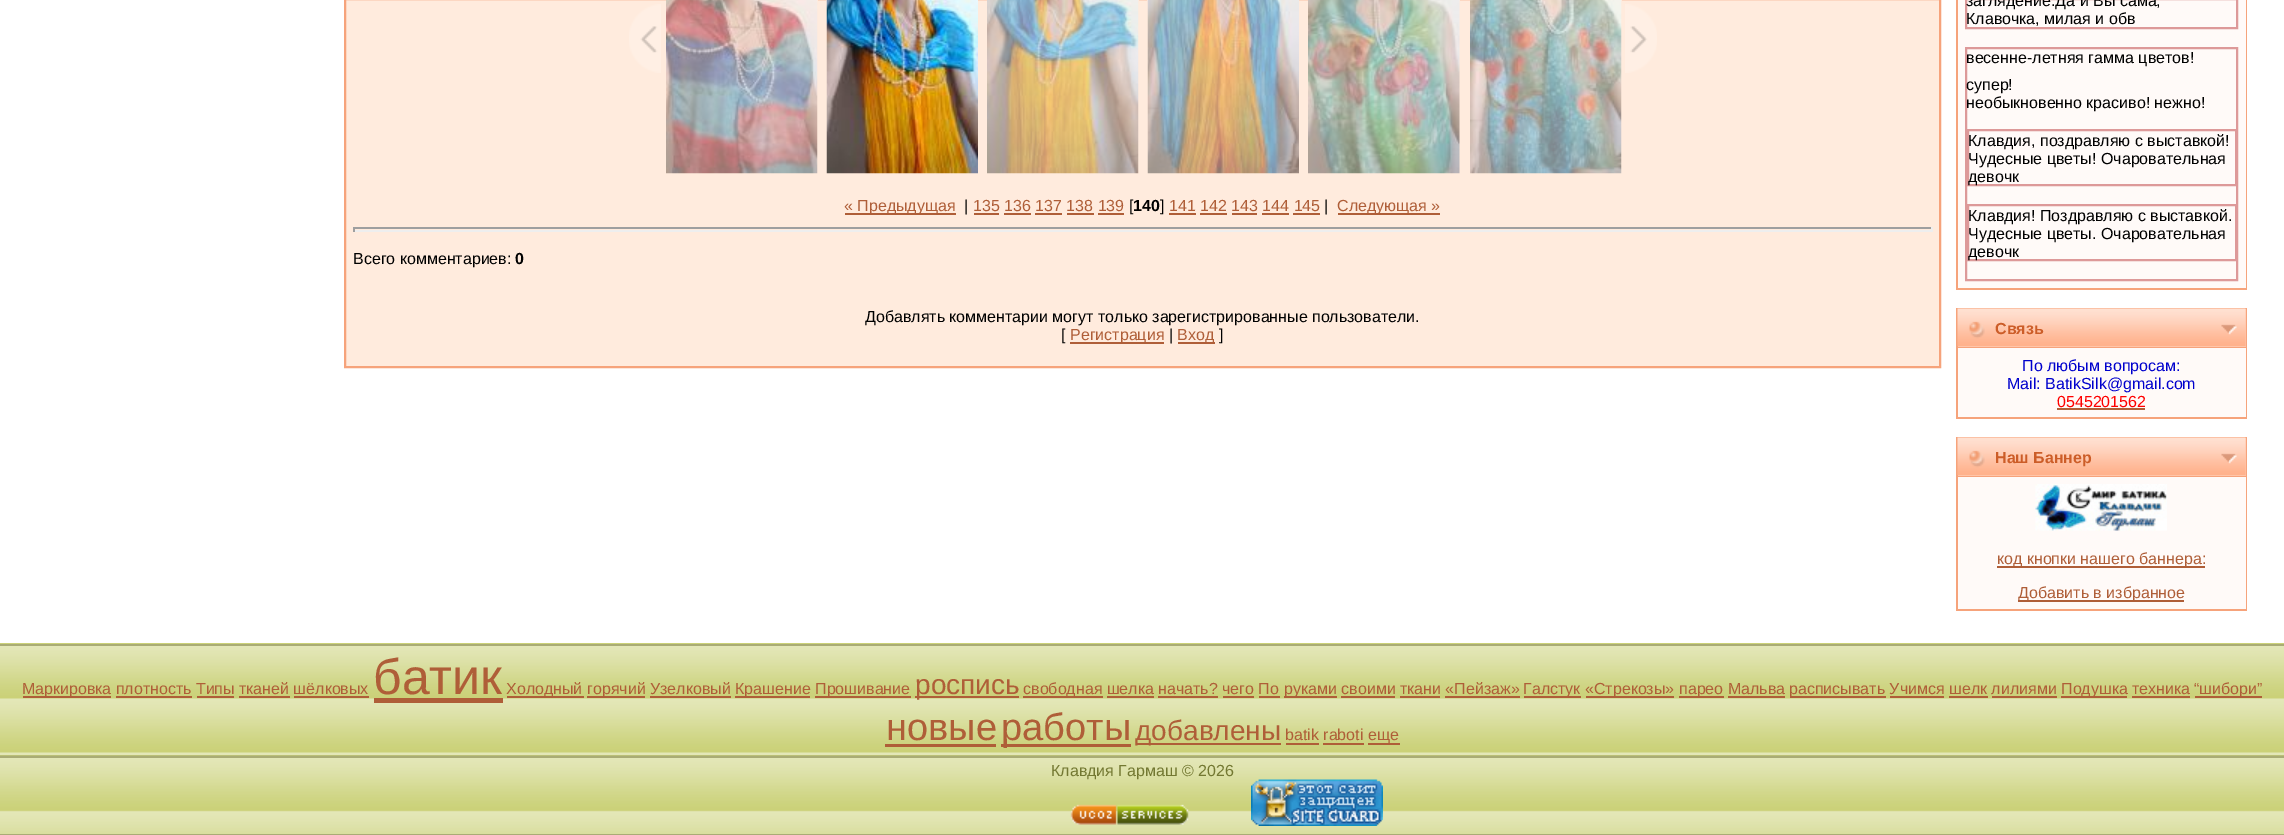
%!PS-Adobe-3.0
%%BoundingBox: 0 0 2284 835
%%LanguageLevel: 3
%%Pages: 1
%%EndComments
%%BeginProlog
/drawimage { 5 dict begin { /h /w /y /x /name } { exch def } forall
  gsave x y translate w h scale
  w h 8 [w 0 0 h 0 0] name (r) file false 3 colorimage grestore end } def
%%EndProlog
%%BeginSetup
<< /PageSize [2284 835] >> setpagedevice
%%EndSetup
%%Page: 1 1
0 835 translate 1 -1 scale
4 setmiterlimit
1 setgray
0 0 2284 835 rectfill
1 0.922 0.867 setrgbcolor
newpath 345 -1 moveto 1940 -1 lineto 1940 367 lineto 345 367 lineto closepath gsave fill grestore
0.965 0.639 0.482 setrgbcolor
2 setlinewidth
stroke
(images/1.raw) 629 4 32 69 drawimage
(images/2.raw) 666 0 152 174 drawimage
(images/3.raw) 826 0 152 174 drawimage
(images/4.raw) 987 0 152 174 drawimage
(images/5.raw) 1147 0 152 174 drawimage
(images/6.raw) 1308 0 152 174 drawimage
(images/7.raw) 1470 0 152 174 drawimage
(images/8.raw) 1625 4 32 69 drawimage
0.686 0.369 0.22 setrgbcolor
845 213 111 2 rectfill
974 213 25 2 rectfill
1169 213 27 2 rectfill
1338 213 102 2 rectfill
1004 213 27 2 rectfill
1035 213 27 2 rectfill
1067 213 27 2 rectfill
1098 213 26 2 rectfill
1200 213 27 2 rectfill
1232 213 25 2 rectfill
1262 213 27 2 rectfill
1293 213 27 2 rectfill
0.624 setgray
353 227 1579 2 rectfill
0.933 setgray
1931 227 2 5 rectfill
353 230 1579 2 rectfill
0.624 setgray
353 227 2 5 rectfill
0.686 0.369 0.22 setrgbcolor
1070 342 94 2 rectfill
1178 342 37 2 rectfill
0.965 0.639 0.482 setrgbcolor
1956 0 291 290 rectfill
1 0.98 0.973 setrgbcolor
1958 0 288 288 rectfill
0.867 0.6 0.6 setrgbcolor
1966 -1 271 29 rectstroke
1966 48 271 232 rectstroke
1968 130 268 55 rectstroke
1968 205 268 55 rectstroke
0.965 0.639 0.482 setrgbcolor
1956 308 291 111 rectfill
1 0.773 0.663 setrgbcolor
1958 309 288 38 rectfill
(images/9.raw) 1957 308 289 38 drawimage
1 0.98 0.973 setrgbcolor
1958 348 288 69 rectfill
0.686 0.369 0.22 setrgbcolor
2057 408 88 2 rectfill
0.965 0.639 0.482 setrgbcolor
1956 437 291 174 rectfill
1 0.773 0.663 setrgbcolor
1958 438 288 38 rectfill
(images/9.raw) 1957 437 289 38 drawimage
1 0.98 0.973 setrgbcolor
1958 477 288 132 rectfill
(images/10.raw) 2035 484 132 47 drawimage
0.686 0.369 0.22 setrgbcolor
1997 566 208 2 rectfill
2018 600 166 2 rectfill
(images/11.raw) 0 643 2284 112 drawimage
0.663 0.675 0.459 setrgbcolor
0 644 2284 2 rectfill
0 755 2284 1 rectfill
0.686 0.369 0.22 setrgbcolor
23 696 88 2 rectfill
116 696 76 2 rectfill
197 696 37 2 rectfill
239 696 51 2 rectfill
294 696 75 2 rectfill
374 698 129 5 rectfill
507 696 77 2 rectfill
587 696 58 2 rectfill
650 696 81 2 rectfill
735 696 75 2 rectfill
815 696 96 2 rectfill
915 696 104 2 rectfill
1023 696 80 2 rectfill
1107 696 47 2 rectfill
1158 696 60 2 rectfill
1223 696 31 2 rectfill
1259 696 21 2 rectfill
1284 696 53 2 rectfill
1341 696 54 2 rectfill
1400 696 40 2 rectfill
1445 696 75 2 rectfill
1524 696 57 2 rectfill
1586 696 88 2 rectfill
1679 696 45 2 rectfill
1728 696 57 2 rectfill
1790 696 96 2 rectfill
1890 696 54 2 rectfill
1949 696 39 2 rectfill
1992 696 65 2 rectfill
2061 696 66 2 rectfill
2132 696 58 2 rectfill
2195 696 67 2 rectfill
885 744 111 3 rectfill
1001 744 130 3 rectfill
1136 743 145 2 rectfill
1286 743 33 2 rectfill
1323 743 41 2 rectfill
1368 743 32 2 rectfill
(images/12.raw) 0 755 2284 79 drawimage
0.663 0.675 0.459 setrgbcolor
0 756 2284 2 rectfill
0 834 2284 1 rectfill
(images/13.raw) 1070 804 119 21 drawimage
(images/14.raw) 1251 779 132 47 drawimage
/LiberationSans-Regular [16 0 0 -16 0 0] selectfont
0.686 0.369 0.22 setrgbcolor
844 211 moveto (« Предыдущая) show
0 setgray
964 211 moveto (|) show
0.686 0.369 0.22 setrgbcolor
973 211 moveto (135 136 137 138 139) show
0 setgray
1129 211 moveto ([) show
/LiberationSans-Bold [16 0 0 -16 0 0] selectfont
1133 211 moveto (140) show
/LiberationSans-Regular [16 0 0 -16 0 0] selectfont
1160 211 moveto (]) show
0.686 0.369 0.22 setrgbcolor
1169 211 moveto (141 142 143 144 145) show
0 setgray
1324 211 moveto (|) show
0.686 0.369 0.22 setrgbcolor
1337 211 moveto (Следующая ») show
0 setgray
353 264 moveto (Всего комментариев:) show
/LiberationSans-Bold [16 0 0 -16 0 0] selectfont
515 264 moveto (0) show
/LiberationSans-Regular [16 0 0 -16 0 0] selectfont
865 322 moveto (Добавлять комментарии могут только зарегистрированные пользователи.) show
1061 340 moveto ([) show
0.686 0.369 0.22 setrgbcolor
1070 340 moveto (Регистрация) show
0 setgray
1169 340 moveto (|) show
0.686 0.369 0.22 setrgbcolor
1177 340 moveto (Вход) show
0 setgray
1219 340 moveto (]) show
1966 6 moveto (заглядение.Да и Вы сама,) show
1966 24 moveto (Клавочка, милая и обв) show
1966 63 moveto (весенне-летняя гамма цветов!) show
1966 90 moveto (супер!) show
1966 108 moveto (необыкновенно красиво! нежно!) show
1968 146 moveto (Клавдия, поздравляю с выставкой!) show
1968 164 moveto (Чудесные цветы! Очаровательная) show
1968 182 moveto (девочк) show
1968 221 moveto (Клавдия! Поздравляю с выставкой.) show
1968 239 moveto (Чудесные цветы. Очаровательная) show
1968 257 moveto (девочк) show
/LiberationSans-Bold [16 0 0 -16 0 0] selectfont
0.8 0.365 0.157 setrgbcolor
1995 334 moveto (Связь) show
/LiberationSans-Regular [16 0 0 -16 0 0] selectfont
0 0 0.804 setrgbcolor
2022 371 moveto (По любым вопросам:) show
2007 389 moveto (Mail: BatikSilk@gmail.com) show
1 0 0 setrgbcolor
2057 407 moveto (0545201562) show
/LiberationSans-Bold [16 0 0 -16 0 0] selectfont
0.8 0.365 0.157 setrgbcolor
1995 463 moveto (Наш Баннер) show
/LiberationSans-Regular [16 0 0 -16 0 0] selectfont
0.686 0.369 0.22 setrgbcolor
1997 564 moveto (код кнопки нашего баннера:) show
2018 598 moveto (Добавить в избранное) show
22 694 moveto (Маркировка плотность Типы тканей шёлковых) show
/LiberationSans-Regular [50 0 0 -50 0 0] selectfont
373 694 moveto (батик) show
/LiberationSans-Regular [16 0 0 -16 0 0] selectfont
506 694 moveto (Холодный) show
587 694 moveto (горячий Узелковый) show
735 694 moveto (Крашение) show
815 694 moveto (Прошивание) show
/LiberationSans-Regular [28 0 0 -28 0 0] selectfont
915 694 moveto (роспись) show
/LiberationSans-Regular [16 0 0 -16 0 0] selectfont
1023 694 moveto (свободная шелка начать? чего По) show
1284 694 moveto (руками своими ткани «Пейзаж») show
1523 694 moveto (Галстук) show
1585 694 moveto («Стрекозы») show
1679 694 moveto (парео Мальва) show
1789 694 moveto (расписывать Учимся шелк лилиями) show
2061 694 moveto (Подушка техника) show
2194 694 moveto (“шибори”) show
/LiberationSans-Regular [38 0 0 -38 0 0] selectfont
886 740 moveto (новые) show
1001 740 moveto (работы) show
/LiberationSans-Regular [28 0 0 -28 0 0] selectfont
1135 740 moveto (добавлены) show
/LiberationSans-Regular [16 0 0 -16 0 0] selectfont
1285 740 moveto (batik raboti) show
1368 740 moveto (еще) show
0.451 0.471 0.196 setrgbcolor
1051 776 moveto (Клавдия Гармаш © 2026) show
showpage
%%EOF
